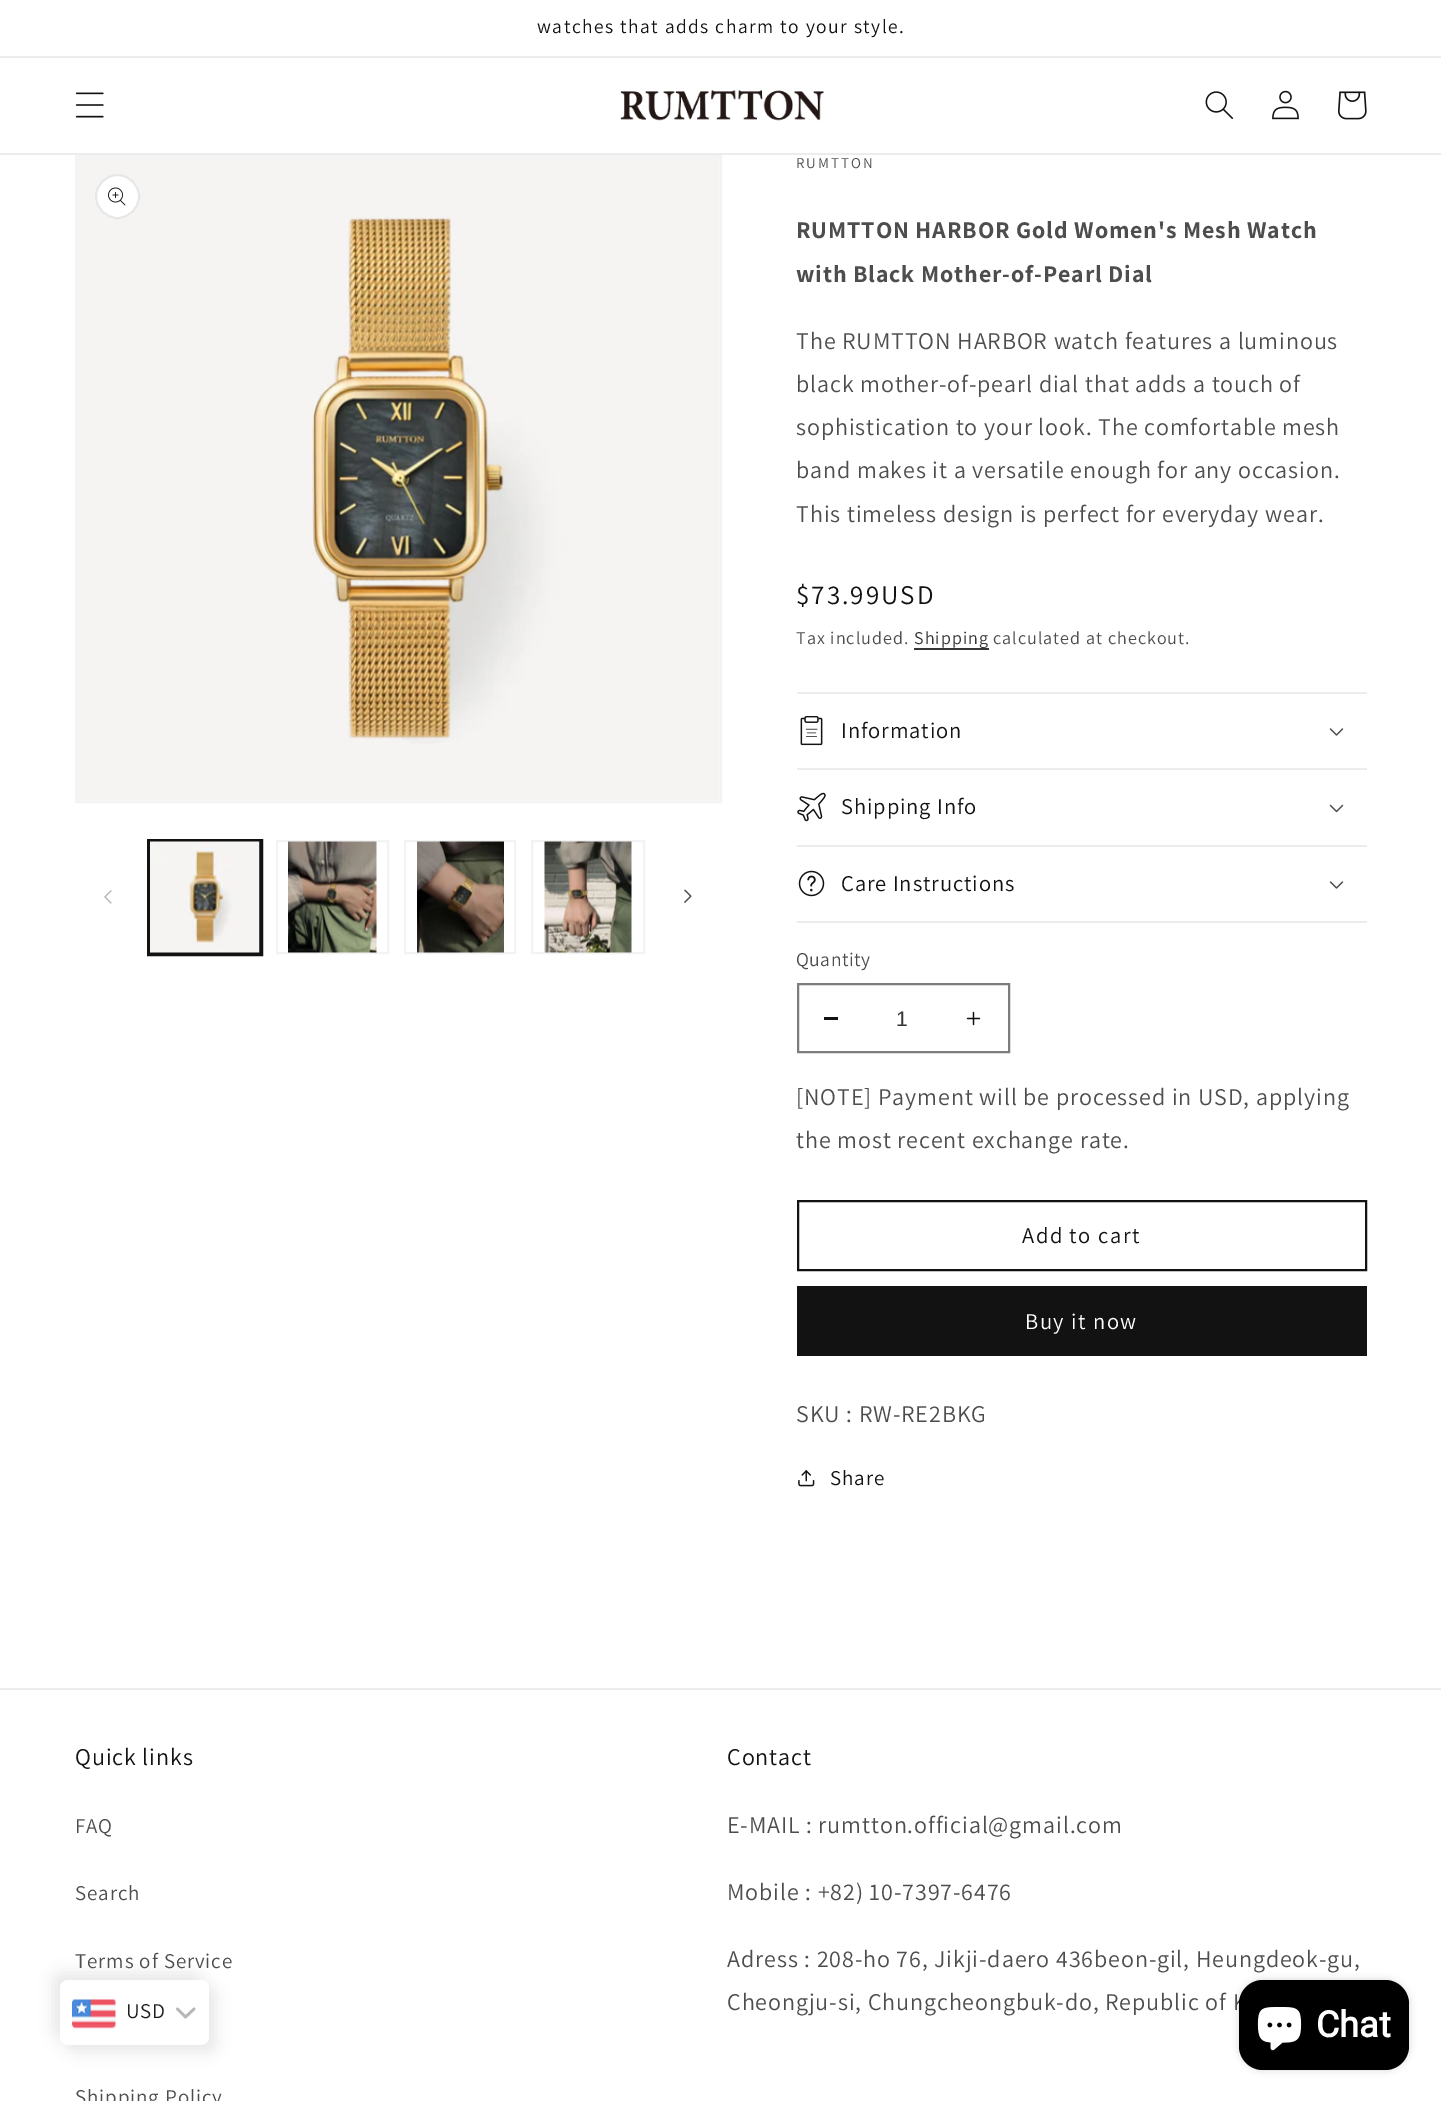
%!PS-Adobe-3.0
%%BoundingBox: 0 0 1441 2101
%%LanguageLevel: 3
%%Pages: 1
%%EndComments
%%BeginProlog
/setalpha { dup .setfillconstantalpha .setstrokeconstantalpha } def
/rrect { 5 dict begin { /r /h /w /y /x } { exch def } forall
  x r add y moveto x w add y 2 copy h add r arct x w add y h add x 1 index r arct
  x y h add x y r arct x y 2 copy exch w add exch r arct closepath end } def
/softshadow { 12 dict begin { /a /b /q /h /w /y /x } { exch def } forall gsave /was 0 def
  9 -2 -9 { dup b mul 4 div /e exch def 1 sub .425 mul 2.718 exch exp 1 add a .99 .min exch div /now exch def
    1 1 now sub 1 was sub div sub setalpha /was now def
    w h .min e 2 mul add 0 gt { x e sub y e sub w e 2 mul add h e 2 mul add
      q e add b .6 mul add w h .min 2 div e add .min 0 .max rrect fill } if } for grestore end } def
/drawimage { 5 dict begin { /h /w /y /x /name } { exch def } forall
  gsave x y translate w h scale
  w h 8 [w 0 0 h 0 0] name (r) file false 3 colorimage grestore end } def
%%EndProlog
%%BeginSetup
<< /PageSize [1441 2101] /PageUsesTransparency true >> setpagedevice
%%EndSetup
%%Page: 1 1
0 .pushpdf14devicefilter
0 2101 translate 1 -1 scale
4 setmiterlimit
1 setgray
0 0 1441 2101 rectfill
0.925 setgray
0 56 1441 2 rectfill
0 153 1441 2 rectfill
(images/1.raw) 75 92 29 26 drawimage
(images/2.raw) 620 90 204 31 drawimage
(images/3.raw) 1205 91 28 28 drawimage
(images/4.raw) 1272 90 27 30 drawimage
(images/5.raw) 1338 91 29 29 drawimage
0.953 setgray
2 setlinewidth
76 156 645 646 rectstroke
(images/6.raw) 77 157 643 644 drawimage
1 setgray
newpath 117.5 196.5 22.5 0 360 arc closepath fill
0.1 setalpha
0.071 setgray
newpath 117.5 196.5 21.5 0 360 arc closepath stroke
1 setalpha
(images/7.raw) 108 187 18 19 drawimage
(images/8.raw) 104 890 8 14 drawimage
148 840 114 115 rectstroke
150 841 110 112 rectstroke
(images/9.raw) 150 841 110 112 drawimage
0.953 setgray
277 841 111 112 rectstroke
(images/10.raw) 288 841 89 112 drawimage
405 841 110 112 rectstroke
(images/11.raw) 417 841 87 112 drawimage
532 841 112 112 rectstroke
(images/12.raw) 544 841 88 112 drawimage
(images/13.raw) 684 889 8 14 drawimage
0.212 setgray
914 648 75 2 rectfill
0.925 setgray
797 692 570 2 rectfill
797 768 570 2 rectfill
(images/14.raw) 800 716 23 30 drawimage
(images/15.raw) 1329 728 15 8 drawimage
797 845 570 2 rectfill
(images/16.raw) 797 792 29 30 drawimage
(images/17.raw) 1329 804 15 9 drawimage
797 921 570 2 rectfill
(images/18.raw) 798 870 27 27 drawimage
(images/15.raw) 1329 881 15 8 drawimage
0.071 setgray
824 1017 14 3 rectfill
(images/19.raw) 966 1011 15 15 drawimage
0.49 setgray
798 984 211 68 rectstroke
0.071 setgray
798 1201 568 69 rectstroke
797 1286 570 70 rectfill
(images/20.raw) 798 1470 17 17 drawimage
0.925 setgray
0 1688 1441 2 rectfill
0.91 setgray
53 1973 148 64 8 7.5 1 softshadow
68 1988 148 64 8 7.5 1 softshadow
1 setgray
60 1980 149 65 8 rrect fill
(images/21.raw) 72 1999 44 30 drawimage
0.718 setgray
2.7 setlinewidth
1 setlinecap
1 setlinejoin
newpath 177.5 2009 moveto 185.5 2017 lineto 194 2009 lineto stroke
0 setgray
1239 1980 170 90 24 4 0.15 softshadow
/Assistant-Regular [19.5 0 0 -19.5 0 0] selectfont
0.071 setgray
537 33 moveto 1.5 0 (watches that adds charm to your style.) ashow
/Assistant-Regular [15 0 0 -15 0 0] selectfont
0.302 setgray
796 168 moveto 2 0 (RUMTTON) ashow
/Assistant-Bold [24 0 0 -24 0 0] selectfont
796 238 moveto 0.9 0 (RUMTTON HARBOR Gold Women's Mesh Watch) ashow
796 282 moveto 0.9 0 (with Black Mother-of-Pearl Dial) ashow
/Assistant-Regular [24 0 0 -24 0 0] selectfont
796 349 moveto 0.9 0 (The RUMTTON HARBOR watch features a luminous) ashow
796 392 moveto 0.9 0 (black mother-of-pearl dial that adds a touch of) ashow
796 435 moveto 0.9 0 (sophistication to your look. The comfortable mesh) ashow
796 478 moveto 0.9 0 (band makes it a versatile enough for any occasion.) ashow
796 522 moveto 0.9 0 (This timeless design is perfect for everyday wear.) ashow
/Assistant-Regular [27 0 0 -27 0 0] selectfont
0.071 setgray
796 604 moveto 2 0 ($73.99USD) ashow
/Assistant-Regular [18 0 0 -18 0 0] selectfont
0.302 setgray
796 644 moveto 1.05 0 (Tax included.) ashow
0.208 setgray
914 644 moveto 1.05 0 (Shipping) ashow
0.302 setgray
993 644 moveto 1.05 0 (calculated at checkout.) ashow
/Assistant-Regular [22.5 0 0 -22.5 0 0] selectfont
0.071 setgray
841 738 moveto 0.9 0 (Information) ashow
841 814 moveto 0.9 0 (Shipping Info) ashow
841 891 moveto 0.9 0 (Care Instructions) ashow
/Assistant-Regular [19.5 0 0 -19.5 0 0] selectfont
0.302 setgray
796 966 moveto 0.5 0 (Quantity) ashow
/LiberationSans-Regular [21 0 0 -21 0 0] selectfont
0.208 setgray
896 1026 moveto (1) show
/Assistant-Regular [24 0 0 -24 0 0] selectfont
0.302 setgray
796 1105 moveto 0.9 0 ([NOTE] Payment will be processed in USD, applying) ashow
796 1148 moveto 0.9 0 (the most recent exchange rate.) ashow
/Assistant-Regular [22.5 0 0 -22.5 0 0] selectfont
0.071 setgray
1022 1243 moveto 1.5 0 (Add to cart) ashow
1 setgray
1025 1329 moveto 1.5 0 (Buy it now) ashow
/Assistant-Regular [24 0 0 -24 0 0] selectfont
0.302 setgray
796 1422 moveto 0.9 0 (SKU : RW-RE2BKG) ashow
/Assistant-Regular [21 0 0 -21 0 0] selectfont
0.071 setgray
830 1485 moveto 0.9 0 (Share) ashow
/Assistant-Regular [24 0 0 -24 0 0] selectfont
75 1765 moveto 0.9 0 (Quick links) ashow
/Assistant-Regular [21 0 0 -21 0 0] selectfont
0.302 setgray
75 1833 moveto 0.9 0 (FAQ) ashow
75 1900 moveto 0.9 0 (Search) ashow
75 1968 moveto 0.9 0 (Terms of Service) ashow
75 2104 moveto 0.9 0 (Shipping Policy) ashow
/Assistant-Regular [24 0 0 -24 0 0] selectfont
0.071 setgray
727 1765 moveto 0.9 0 (Contact) ashow
0.302 setgray
727 1833 moveto 0.9 0 (E-MAIL : rumtton.official@gmail.com) ashow
727 1900 moveto 0.9 0 (Mobile : +82\) 10-7397-6476) ashow
727 1967 moveto 0.9 0 (Adress : 208-ho 76, Jikji-daero 436beon-gil, Heungdeok-gu,) ashow
727 2010 moveto 0.9 0 (Cheongju-si, Chungcheongbuk-do, Republic of K) ashow
/Assistant-Regular [21 0 0 -21 0 0] selectfont
0.118 setgray
126 2018 moveto 0.9 0 (USD) ashow
0 setgray
1239 1980 170 90 24 rrect fill
(images/22.raw) 1257 2007 45 44 drawimage
/Roboto-Bold [36 0 0 -36 0 0] selectfont
1 setgray
1316 2037 moveto (Chat) show
.poppdf14devicefilter showpage
%%EOF
